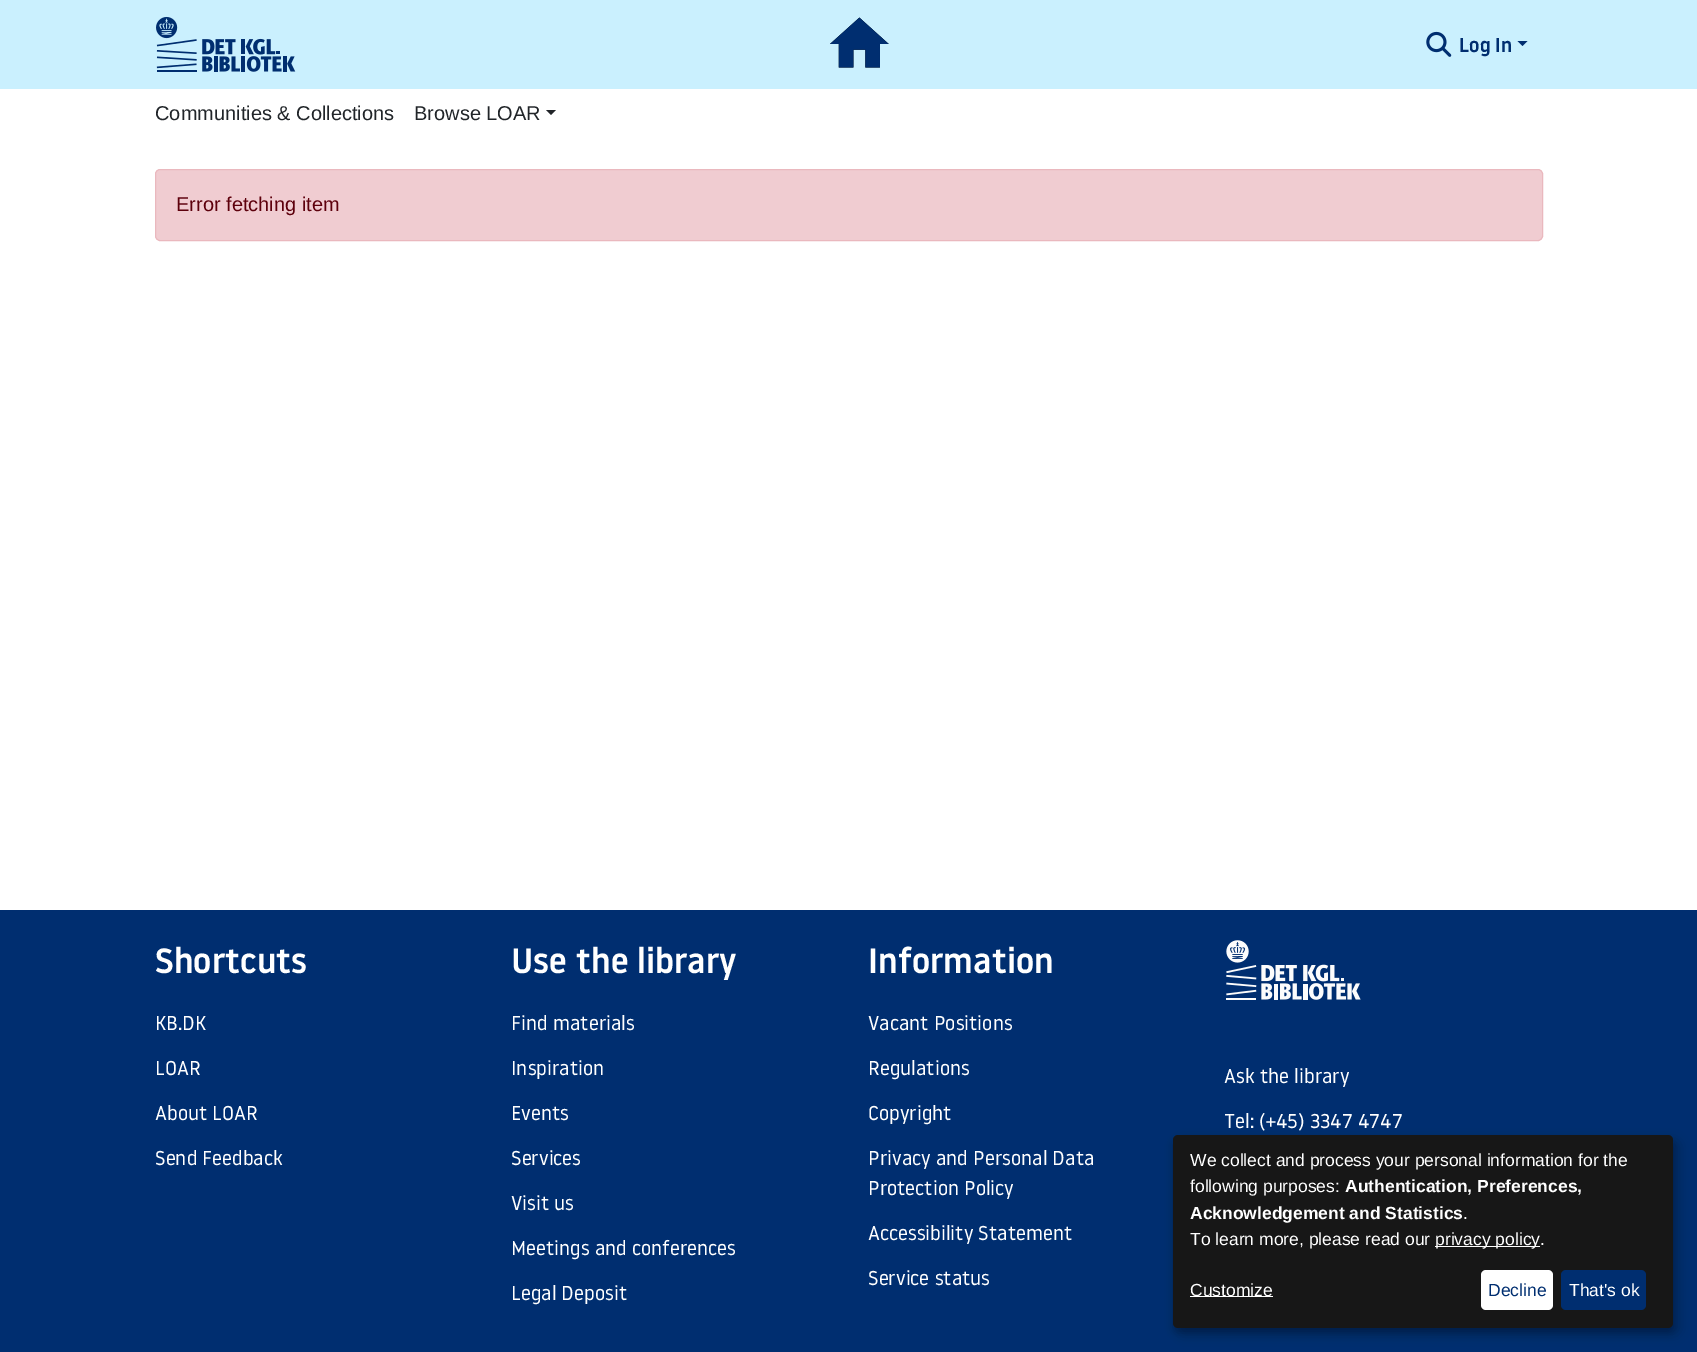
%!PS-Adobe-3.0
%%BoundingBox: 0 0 1697 1352
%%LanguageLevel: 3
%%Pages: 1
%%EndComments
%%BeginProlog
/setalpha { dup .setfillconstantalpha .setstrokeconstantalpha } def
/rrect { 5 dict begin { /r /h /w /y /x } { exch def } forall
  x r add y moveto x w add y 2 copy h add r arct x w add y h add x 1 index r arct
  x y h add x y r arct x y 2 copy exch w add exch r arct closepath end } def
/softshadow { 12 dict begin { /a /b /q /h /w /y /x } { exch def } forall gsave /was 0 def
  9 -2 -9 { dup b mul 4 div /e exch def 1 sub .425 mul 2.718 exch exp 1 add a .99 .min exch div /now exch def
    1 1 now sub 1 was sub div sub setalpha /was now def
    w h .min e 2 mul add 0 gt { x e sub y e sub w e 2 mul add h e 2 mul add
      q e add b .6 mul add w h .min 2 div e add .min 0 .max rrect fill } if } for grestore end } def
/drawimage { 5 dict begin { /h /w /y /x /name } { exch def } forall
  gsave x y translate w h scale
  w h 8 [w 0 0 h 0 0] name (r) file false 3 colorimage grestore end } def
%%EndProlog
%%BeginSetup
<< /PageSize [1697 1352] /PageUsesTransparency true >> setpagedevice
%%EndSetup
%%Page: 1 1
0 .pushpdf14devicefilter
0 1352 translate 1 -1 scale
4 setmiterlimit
1 setgray
0 0 1697 1352 rectfill
0.792 0.941 0.996 setrgbcolor
0 0 1697 89 rectfill
(images/1.raw) 156 16 140 56 drawimage
(images/2.raw) 830 17 59 51 drawimage
(images/3.raw) 1426 31 26 26 drawimage
0 0.18 0.439 setrgbcolor
newpath 1517.5 41 moveto 1527.5 41 lineto 1522.5 46 lineto closepath fill
0.129 0.145 0.161 setrgbcolor
newpath 546 110 moveto 556 110 lineto 551 115 lineto closepath fill
0.941 0.8 0.82 setrgbcolor
155.5 169.5 1387 71 4.5 rrect gsave fill grestore
0.918 0.722 0.745 setrgbcolor
stroke
0 0.18 0.439 setrgbcolor
0 910 1697 442 rectfill
(images/4.raw) 1226 940 135 60 drawimage
0 setgray
1179 1141 500 193 5 6 0.19 softshadow
1173 1140 500 193 5 4 0.2 softshadow
0.09 setgray
1173 1135 500 193 5 rrect fill
1 setgray
1435 1246 105 1 rectfill
1190 1296 83 1 rectfill
1481 1270 72 40 5 rrect fill
0 0.18 0.439 setrgbcolor
1561 1270 85 40 5 rrect fill
/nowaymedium-Medium [20 0 0 -20 0 0] selectfont
1459 52 moveto (Log In) show
/LiberationSans-Regular [20 0 0 -20 0 0] selectfont
0.129 0.145 0.161 setrgbcolor
155 120 moveto (Communities & Collections) show
414 120 moveto (Browse LOAR) show
0.365 0 0.047 setrgbcolor
176 211 moveto (Error fetching item) show
/nowaymedium-Medium [35 0 0 -35 0 0] selectfont
1 setgray
155 973 moveto (Shortcuts) show
/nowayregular-Regular [20 0 0 -20 0 0] selectfont
155 1030 moveto (KB.DK) show
155 1075 moveto (LOAR) show
155 1120 moveto (About LOAR) show
155 1165 moveto (Send Feedback) show
/nowaymedium-Medium [35 0 0 -35 0 0] selectfont
511 973 moveto (Use the library) show
/nowayregular-Regular [20 0 0 -20 0 0] selectfont
511 1030 moveto (Find materials) show
511 1075 moveto (Inspiration) show
511 1120 moveto (Events) show
511 1165 moveto (Services) show
511 1210 moveto (Visit us) show
511 1255 moveto (Meetings and conferences) show
511 1300 moveto (Legal Deposit) show
/nowaymedium-Medium [35 0 0 -35 0 0] selectfont
868 973 moveto (Information) show
/nowayregular-Regular [20 0 0 -20 0 0] selectfont
868 1030 moveto (Vacant Positions) show
868 1075 moveto (Regulations) show
868 1120 moveto (Copyright) show
868 1165 moveto (Privacy and Personal Data) show
868 1195 moveto (Protection Policy) show
868 1240 moveto (Accessibility Statement) show
868 1285 moveto (Service status) show
1224 1083 moveto (Ask the library) show
1224 1128 moveto (Tel: \(+45\) 3347 4747) show
/LiberationSans-Regular [17.5 0 0 -17.5 0 0] selectfont
1190 1166 moveto (We collect and process your personal information for the) show
1190 1192 moveto (following purposes:) show
/LiberationSans-Bold [17.5 0 0 -17.5 0 0] selectfont
1345 1192 moveto (Authentication, Preferences,) show
1190 1219 moveto (Acknowledgement and Statistics) show
/LiberationSans-Regular [17.5 0 0 -17.5 0 0] selectfont
1463 1219 moveto (.) show
1190 1245 moveto (To learn more, please read our) show
1435 1245 moveto (privacy policy) show
1540 1245 moveto (.) show
1190 1296 moveto (Customize) show
0 0.18 0.439 setrgbcolor
1488 1296 moveto (Decline) show
1 setgray
1569 1296 moveto (That's ok) show
.poppdf14devicefilter showpage
%%EOF
